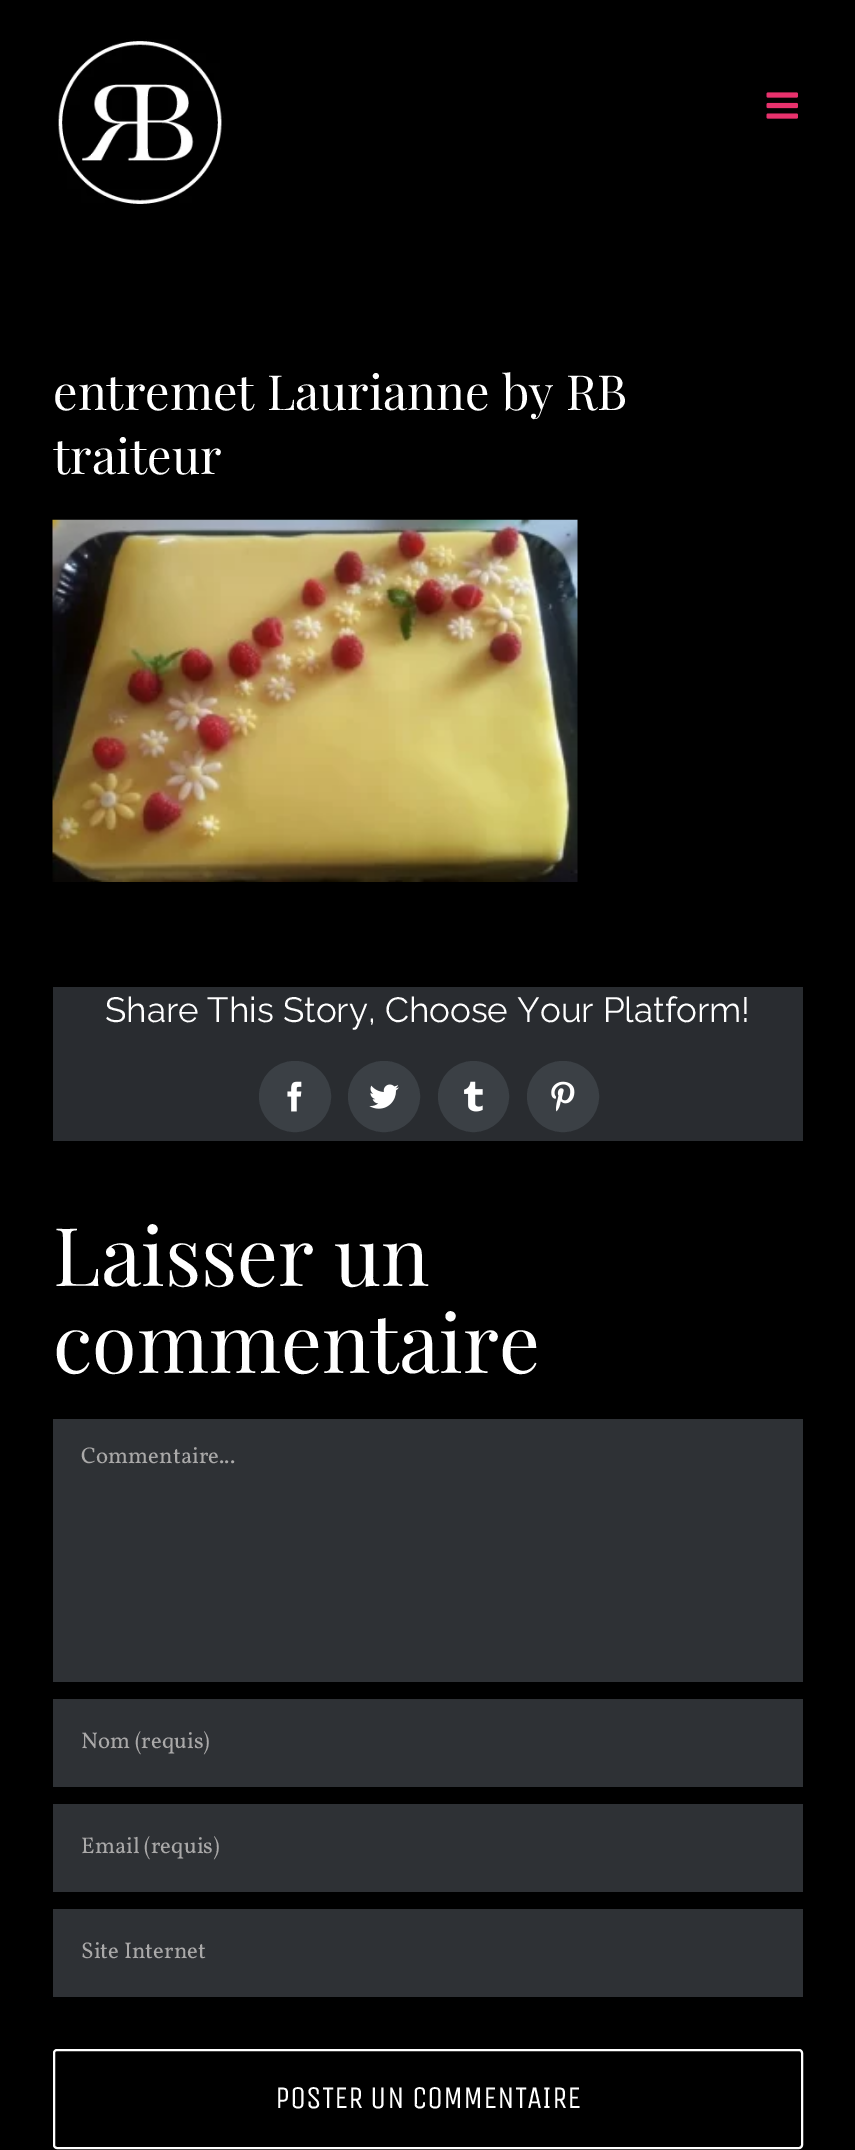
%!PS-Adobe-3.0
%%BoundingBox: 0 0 855 2150
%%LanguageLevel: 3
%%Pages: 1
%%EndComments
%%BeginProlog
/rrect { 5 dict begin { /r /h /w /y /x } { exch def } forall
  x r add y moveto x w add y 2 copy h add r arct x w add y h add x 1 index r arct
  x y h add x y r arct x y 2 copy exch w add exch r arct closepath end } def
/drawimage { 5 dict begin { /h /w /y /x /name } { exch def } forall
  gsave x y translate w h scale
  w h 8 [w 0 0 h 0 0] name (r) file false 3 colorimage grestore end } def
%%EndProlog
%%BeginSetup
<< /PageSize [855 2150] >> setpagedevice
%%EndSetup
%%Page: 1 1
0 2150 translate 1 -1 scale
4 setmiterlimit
0 setgray
0 0 855 2150 rectfill
(images/1.raw) 58 39 166 165 drawimage
(images/2.raw) 766 92 32 27 drawimage
(images/3.raw) 52 519 526 363 drawimage
0.161 0.173 0.188 setrgbcolor
53 987 750 154 rectfill
0.231 0.251 0.271 setrgbcolor
260 1062 70 69 34.5 rrect gsave fill grestore
2 setlinewidth
stroke
(images/4.raw) 287 1081 15 31 drawimage
349 1062 70 69 34.5 rrect gsave fill grestore
stroke
(images/5.raw) 369 1084 30 25 drawimage
newpath 473.5 1096.5 34.5 0 360 arc closepath gsave fill grestore
stroke
(images/6.raw) 464 1081 19 31 drawimage
528 1062 70 69 34.5 rrect gsave fill grestore
stroke
(images/7.raw) 551 1081 24 31 drawimage
0.18 0.192 0.208 setrgbcolor
53 1419 750 263 rectfill
53 1699 750 88 rectfill
53 1804 750 88 rectfill
53 1909 750 88 rectfill
1 setgray
54 2050 748 98 3 rrect stroke
/PlayfairDisplay-Regular [48.5 0 0 -48.5 0 0] selectfont
53 410 moveto (entremet Laurianne by RB) show
53 474 moveto (traiteur) show
/Raleway-Thin [35 0 0 -35 0 0] selectfont
105 1022 moveto (Share This Story, Choose Your Platform!) show
/PlayfairDisplay-Regular [81 0 0 -81 0 0] selectfont
53 1286 moveto (Laisser un) show
53 1373 moveto (commentaire) show
/Vollkorn-Regular [22.75 0 0 -22.75 0 0] selectfont
0.667 0.663 0.663 setrgbcolor
81 1463 moveto (Commentaire...) show
81 1748 moveto (Nom \(requis\)) show
81 1853 moveto (Email \(requis\)) show
81 1958 moveto (Site Internet) show
/UnicaOne-Regular [31.5 0 0 -31.5 0 0] selectfont
1 setgray
275 2108 moveto (POSTER UN COMMENTAIRE) show
showpage
%%EOF
